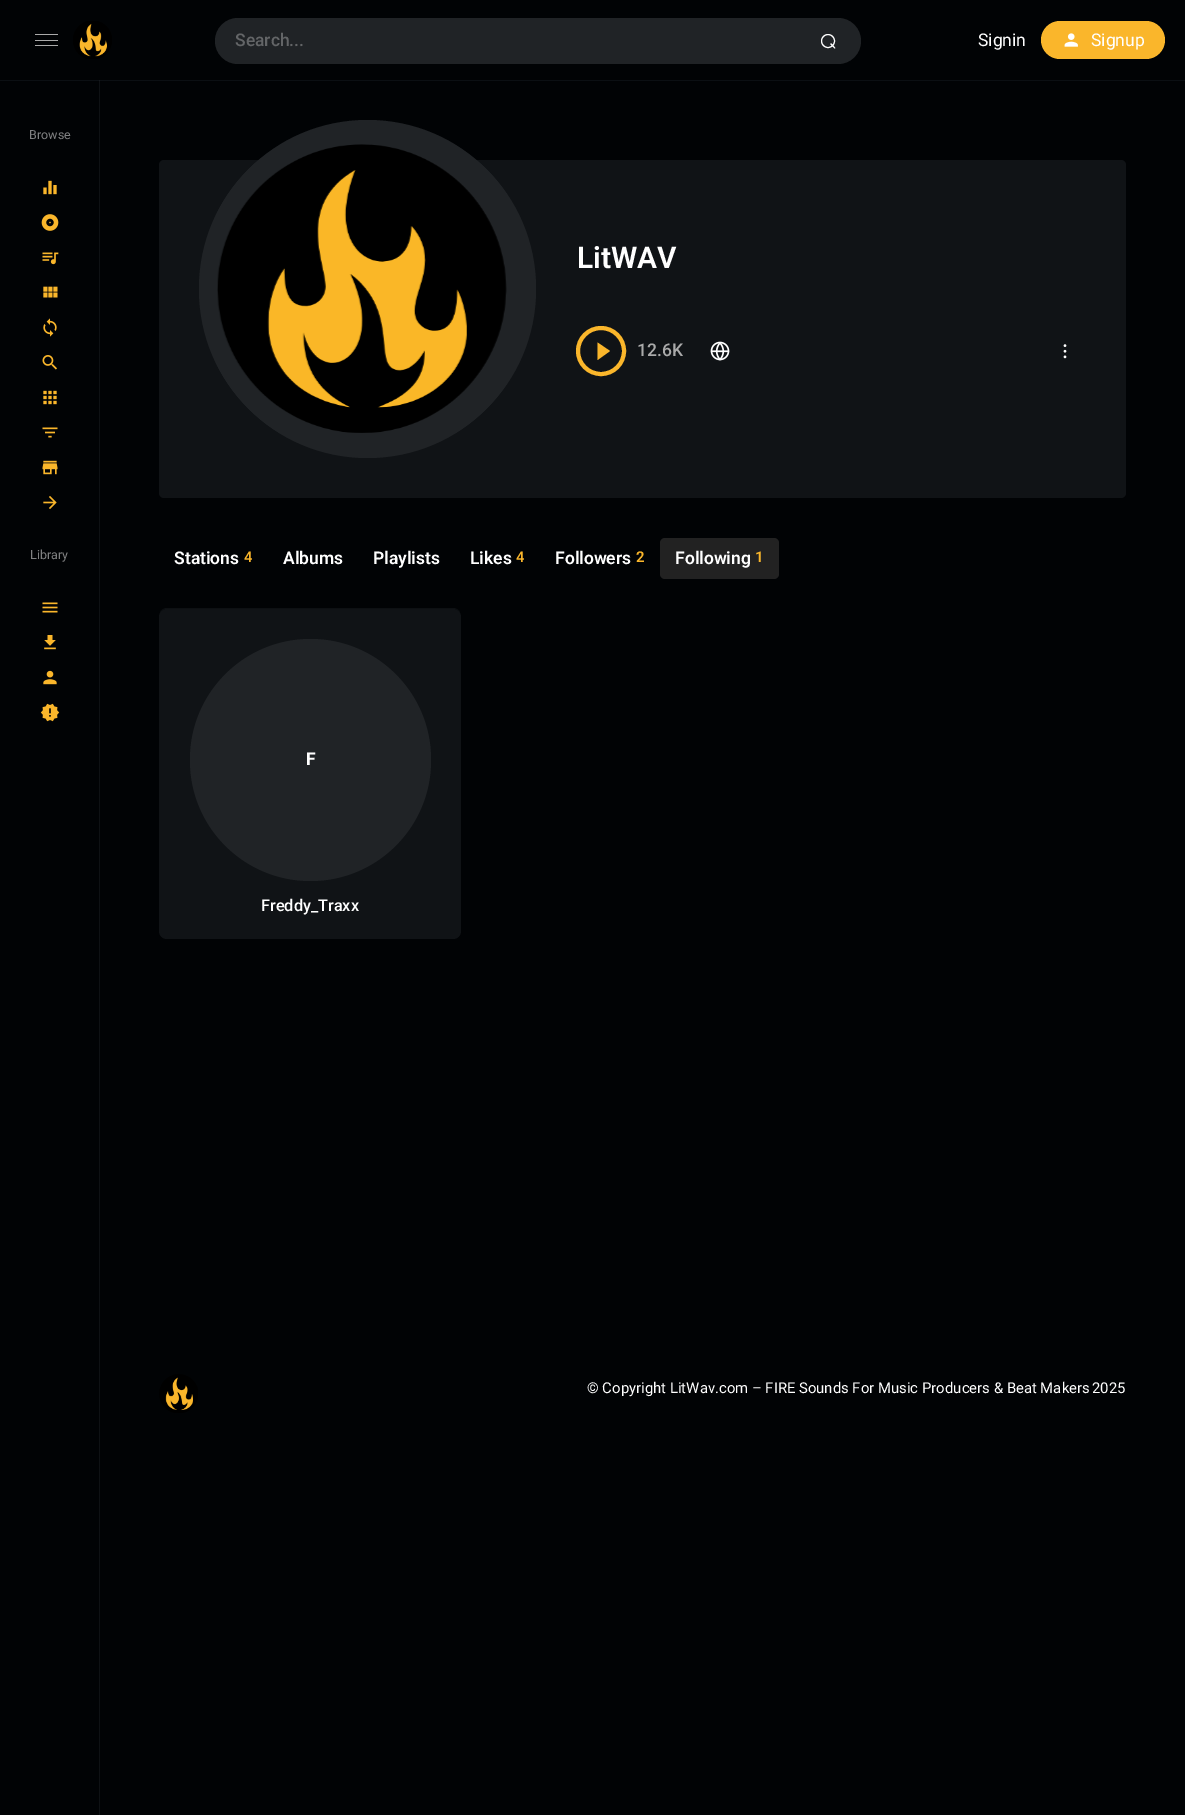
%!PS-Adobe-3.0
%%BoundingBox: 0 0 1185 1815
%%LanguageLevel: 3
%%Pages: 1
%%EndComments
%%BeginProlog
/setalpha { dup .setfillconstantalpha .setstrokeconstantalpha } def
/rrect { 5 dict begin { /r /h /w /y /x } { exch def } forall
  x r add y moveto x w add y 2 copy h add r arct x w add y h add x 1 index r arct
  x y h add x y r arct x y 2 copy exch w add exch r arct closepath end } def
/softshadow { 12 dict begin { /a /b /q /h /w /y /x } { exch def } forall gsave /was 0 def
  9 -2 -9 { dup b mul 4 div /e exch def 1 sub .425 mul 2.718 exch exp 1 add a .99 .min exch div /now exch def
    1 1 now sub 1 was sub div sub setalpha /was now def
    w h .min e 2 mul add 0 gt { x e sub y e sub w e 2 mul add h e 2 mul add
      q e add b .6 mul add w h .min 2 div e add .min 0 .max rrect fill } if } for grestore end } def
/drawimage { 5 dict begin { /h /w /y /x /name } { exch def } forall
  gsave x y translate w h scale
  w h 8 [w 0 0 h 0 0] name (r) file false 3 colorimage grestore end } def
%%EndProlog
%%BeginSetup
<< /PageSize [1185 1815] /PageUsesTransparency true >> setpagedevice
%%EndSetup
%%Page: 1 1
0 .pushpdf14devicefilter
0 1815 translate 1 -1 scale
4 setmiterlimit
0.004 0.012 0.02 setrgbcolor
0 0 1185 1815 rectfill
0.055 0.067 0.078 setrgbcolor
99 80 1 1735 rectfill
gsave
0 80 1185 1 rectclip
0.51 0.549 0.588 setrgbcolor
0 1 1185 80 0 0.5 0.1 softshadow
grestore
0.667 setgray
35 40 23 1 0.5 rrect fill
35 34 23 1 0.5 rrect fill
35 45 23 1 0.5 rrect fill
(images/1.raw) 73 21 39 38 drawimage
0.125 0.137 0.149 setrgbcolor
215 18 646 46 23 rrect fill
1 setgray
newpath 828 41 6.5 0 360 arc closepath stroke
newpath 831.5 43.5 moveto 834.5 47 lineto 836 48.5 835 49 833.5 47.5 curveto 830.5 44.5 lineto 830 44 831 43 831.5 43.5 curveto closepath fill
0.98 0.714 0.169 setrgbcolor
1041 21 124 38 19 rrect fill
(images/2.raw) 1064 33 14 14 drawimage
(images/3.raw) 43 180 14 15 drawimage
(images/4.raw) 41 214 18 17 drawimage
(images/5.raw) 42 252 17 13 drawimage
(images/6.raw) 43 286 15 12 drawimage
(images/7.raw) 43 318 14 19 drawimage
(images/8.raw) 42 355 15 15 drawimage
(images/9.raw) 43 390 14 15 drawimage
(images/10.raw) 42 427 16 11 drawimage
(images/11.raw) 42 460 16 15 drawimage
(images/12.raw) 43 496 14 13 drawimage
(images/13.raw) 42 602 16 11 drawimage
(images/14.raw) 44 635 12 15 drawimage
(images/15.raw) 43 670 14 15 drawimage
(images/16.raw) 40 703 20 19 drawimage
0.063 0.075 0.086 setrgbcolor
159 160 967 338 5 rrect fill
0.125 0.137 0.149 setrgbcolor
199 120 337 338 168.5 rrect fill
(images/17.raw) 217 144 290 289 drawimage
0.98 0.714 0.169 setrgbcolor
newpath 597.5 360 moveto 597.5 342.5 lineto 610 351 lineto closepath fill
4 setlinewidth
newpath 601 351 23 0 360 arc closepath stroke
(images/18.raw) 710 341 20 20 drawimage
(images/19.raw) 1063 344 4 15 drawimage
0.133 setgray
660 538 119 41 5 rrect fill
0.051 0.063 0.075 setrgbcolor
newpath 167 608 moveto 164 608 161 610 160 612 curveto 161 610 164 609 166 609 curveto 454 609 lineto 456 609 459 610 460 612 curveto 459 610 456 608 453 608 curveto closepath fill
0.063 0.075 0.086 setrgbcolor
159 609 302 330 8 rrect fill
0.125 0.137 0.149 setrgbcolor
190 639 241 242 120.5 rrect fill
(images/20.raw) 159 1374 39 39 drawimage
/Roboto-Medium [17.5 0 0 -17.5 0 0] selectfont
0.388 0.396 0.404 setrgbcolor
235 46 moveto (Search...) show
/Roboto-Regular [17.5 0 0 -17.5 0 0] selectfont
1 setgray
978 46 moveto (Signin) show
1091 46 moveto (Signup) show
/Roboto-Regular [12.5 0 0 -12.5 0 0] selectfont
0.502 0.506 0.51 setrgbcolor
29 139 moveto (Browse) show
30 559 moveto (Library) show
/Roboto-SemiBold [30 0 0 -30 0 0] selectfont
1 setgray
577 268 moveto (LitWAV) show
/Roboto-Medium [17.5 0 0 -17.5 0 0] selectfont
0.667 setgray
637 356 moveto (12.6K) show
/Roboto-SemiBold [17.5 0 0 -17.5 0 0] selectfont
1 setgray
174 564 moveto (Stations) show
/Roboto-SemiBold [14.9 0 0 -14.9 0 0] selectfont
0.98 0.714 0.169 setrgbcolor
244 562 moveto (4) show
/Roboto-SemiBold [17.5 0 0 -17.5 0 0] selectfont
1 setgray
283 564 moveto (Albums) show
373 564 moveto (Playlists) show
470 564 moveto (Likes) show
/Roboto-SemiBold [14.9 0 0 -14.9 0 0] selectfont
0.98 0.714 0.169 setrgbcolor
516 562 moveto (4) show
/Roboto-SemiBold [17.5 0 0 -17.5 0 0] selectfont
1 setgray
555 564 moveto (Followers) show
/Roboto-SemiBold [14.9 0 0 -14.9 0 0] selectfont
0.98 0.714 0.169 setrgbcolor
636 562 moveto (2) show
/Roboto-SemiBold [17.5 0 0 -17.5 0 0] selectfont
1 setgray
675 564 moveto (Following) show
/Roboto-SemiBold [14.9 0 0 -14.9 0 0] selectfont
0.98 0.714 0.169 setrgbcolor
755 562 moveto (1) show
/Roboto-Bold [17.5 0 0 -17.5 0 0] selectfont
1 setgray
306 765 moveto (F) show
/Roboto-Medium [16.25 0 0 -16.25 0 0] selectfont
261 911 moveto (Freddy_Traxx) show
/Roboto-Regular [14.9 0 0 -14.9 0 0] selectfont
587 1393 moveto (© Copyright LitWav.com – FIRE Sounds For Music Producers & Beat Makers) show
1092 1393 moveto (2025) show
.poppdf14devicefilter showpage
%%EOF
